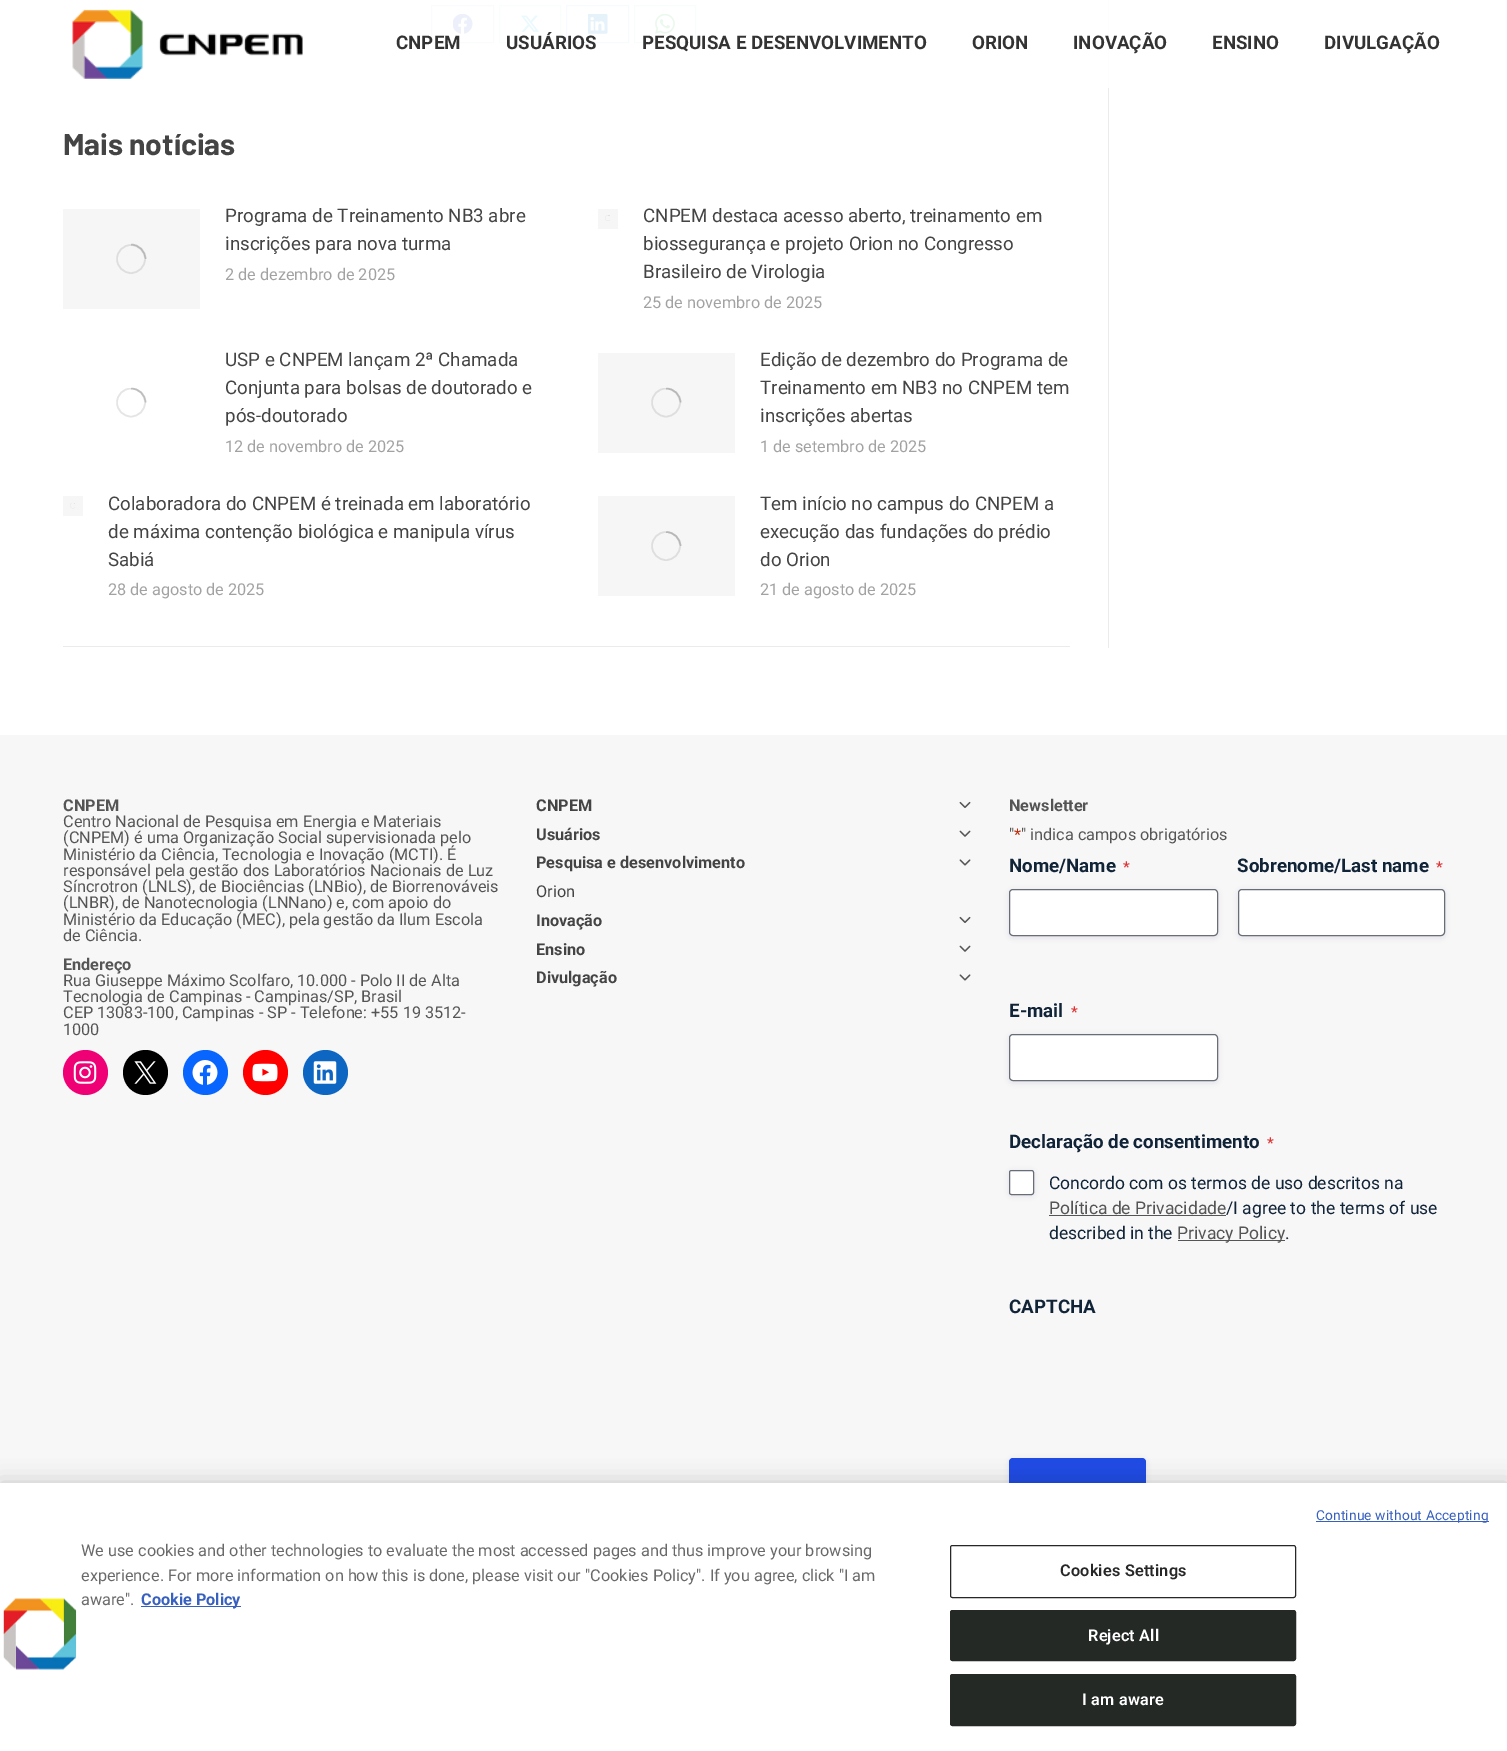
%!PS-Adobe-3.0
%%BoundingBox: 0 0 1507 1751
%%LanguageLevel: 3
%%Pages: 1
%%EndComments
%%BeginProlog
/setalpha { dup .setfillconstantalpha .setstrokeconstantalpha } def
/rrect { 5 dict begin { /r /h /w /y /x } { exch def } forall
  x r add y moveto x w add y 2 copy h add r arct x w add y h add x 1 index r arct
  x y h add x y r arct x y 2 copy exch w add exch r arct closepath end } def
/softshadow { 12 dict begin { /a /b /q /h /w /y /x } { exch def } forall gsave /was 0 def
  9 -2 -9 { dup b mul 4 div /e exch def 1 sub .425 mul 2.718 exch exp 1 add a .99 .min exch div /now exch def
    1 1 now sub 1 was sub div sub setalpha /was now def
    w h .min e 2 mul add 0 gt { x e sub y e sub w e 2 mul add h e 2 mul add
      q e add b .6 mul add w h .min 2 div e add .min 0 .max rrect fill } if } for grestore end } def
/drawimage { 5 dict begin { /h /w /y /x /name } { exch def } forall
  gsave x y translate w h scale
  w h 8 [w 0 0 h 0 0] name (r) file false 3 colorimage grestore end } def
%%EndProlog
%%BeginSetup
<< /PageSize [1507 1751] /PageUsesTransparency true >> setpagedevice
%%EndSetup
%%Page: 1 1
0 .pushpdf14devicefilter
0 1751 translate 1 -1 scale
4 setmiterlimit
1 setgray
0 0 1507 1751 rectfill
0.788 0.824 0.933 setrgbcolor
431.5 5.5 62 37 rectstroke
(images/2.raw) 453 14 20 20 drawimage
0.749 0.925 0.976 setrgbcolor
499.5 5.5 61 37 rectstroke
(images/3.raw) 521 15 18 17 drawimage
0.702 0.843 0.933 setrgbcolor
566.5 5.5 62 37 rectstroke
(images/4.raw) 588 14 20 20 drawimage
0.765 0.914 0.792 setrgbcolor
634.5 5.5 61 37 rectstroke
(images/5.raw) 655 14 20 20 drawimage
0.922 setgray
1108 0 1 648 rectfill
0.9 setalpha
1 setgray
431 0 678 88 rectfill
1 setalpha
(images/1.raw) 72 9 231 70 drawimage
0.922 setgray
63 646 1007 1 rectfill
0.965 setgray
63 209 137 100 rectfill
0.871 setgray
1.6 setlinewidth
newpath 131 259 14 0 360 arc closepath stroke
0.25 setalpha
0.267 setgray
newpath 145.5 259 moveto 145.5 251 139 244.5 131 244.5 curveto stroke
1 setalpha
0.965 setgray
598 209 20 20 rectfill
(images/6.raw) 605 215 5 6 drawimage
gsave
116 388 30 30 rectclip
0.898 setgray
newpath 131 402.5 14 0 360 arc closepath stroke
grestore
0.25 setalpha
0.267 setgray
newpath 145.5 402.5 moveto 145.5 394.5 139 388.5 131 388.5 curveto stroke
1 setalpha
0.965 setgray
598 353 137 100 rectfill
gsave
651 388 30 30 rectclip
0.871 setgray
newpath 666 402.5 14 0 360 arc closepath stroke
grestore
0.25 setalpha
0.267 setgray
newpath 680.5 402.5 moveto 680.5 394.5 674 388.5 666 388.5 curveto stroke
1 setalpha
0.965 setgray
63 496 20 20 rectfill
(images/7.raw) 70 503 5 6 drawimage
598 496 137 100 rectfill
0.871 setgray
newpath 666 546 14 0 360 arc closepath stroke
0.25 setalpha
0.267 setgray
newpath 680.5 546 moveto 680.5 538.5 674 532 666 532 curveto stroke
1 setalpha
0.969 0.969 0.973 setrgbcolor
0 735 1507 748 rectfill
0.941 0 0.459 setrgbcolor
newpath 85.5 1072.5 22.5 0 360 arc closepath fill
(images/8.raw) 73 1061 24 23 drawimage
0 setgray
newpath 145.5 1072.5 22.5 0 360 arc closepath fill
(images/9.raw) 134 1061 23 23 drawimage
0.031 0.4 1 setrgbcolor
newpath 205.5 1072.5 22.5 0 360 arc closepath fill
(images/10.raw) 192 1060 26 25 drawimage
1 0 0 setrgbcolor
newpath 265.5 1072.5 22.5 0 360 arc closepath fill
(images/11.raw) 252 1063 26 19 drawimage
0.051 0.4 0.761 setrgbcolor
newpath 325.5 1072.5 22.5 0 360 arc closepath fill
(images/12.raw) 313 1061 24 23 drawimage
(images/13.raw) 959 801 12 7 drawimage
(images/14.raw) 959 830 12 7 drawimage
(images/15.raw) 959 859 12 7 drawimage
(images/13.raw) 959 916 12 7 drawimage
(images/14.raw) 959 945 12 7 drawimage
(images/15.raw) 959 974 12 7 drawimage
0.071 0.098 0.38 setrgbcolor
1009 890 209 48 4 2.5 0.08 softshadow
1 setgray
1009.5 889.5 208 46 3.5 rrect gsave fill grestore
0.408 0.431 0.467 setrgbcolor
1 setlinewidth
stroke
0.071 0.098 0.38 setrgbcolor
1238 890 207 48 4 2.5 0.08 softshadow
1 setgray
1238.5 889.5 206 46 3.5 rrect gsave fill grestore
0.408 0.431 0.467 setrgbcolor
stroke
0.071 0.098 0.38 setrgbcolor
1009 1035 209 48 4 2.5 0.08 softshadow
1 setgray
1009.5 1034.5 208 46 3.5 rrect gsave fill grestore
0.408 0.431 0.467 setrgbcolor
stroke
0.071 0.098 0.38 setrgbcolor
1009 1171 25 25 2.5 2.5 0.08 softshadow
1 setgray
1009.5 1170.5 24 24 2 rrect gsave fill grestore
0.408 0.431 0.467 setrgbcolor
stroke
0.333 setgray
1049 1215 177 1 rectfill
1178 1240 107 1 rectfill
0.071 0.098 0.38 setrgbcolor
1009 1459 137 47 4 2.5 0.08 softshadow
0.125 0.298 0.898 setrgbcolor
1009 1458 137 47 4 rrect fill
0 setgray
0 1483 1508 268 0 11 0.2 softshadow
1 setgray
0 1483 1507 268 rectfill
0.22 0.376 0.745 setrgbcolor
1316 1521 173 1 rectfill
141 1606 100 1 rectfill
(images/16.raw) 3 1598 74 72 drawimage
0.149 0.153 0.149 setrgbcolor
950.5 1545.5 345 52 2 rrect stroke
0.141 0.161 0.149 setrgbcolor
950.5 1610.5 345 50 2 rrect gsave fill grestore
stroke
950.5 1674.5 345 51 2 rrect gsave fill grestore
stroke
/Roboto-Bold [18.75 0 0 -18.75 0 0] selectfont
0.2 setgray
396 49 moveto (CNPEM) show
506 49 moveto (USUÁRIOS) show
642 49 moveto (PESQUISA E DESENVOLVIMENTO) show
972 49 moveto (ORION) show
1073 49 moveto (INOVAÇÃO) show
1212 49 moveto (ENSINO) show
1324 49 moveto (DIVULGAÇÃO) show
/Barlow-Bold [30 0 0 -30 0 0] selectfont
0.267 setgray
63 155 moveto (Mais notícias) show
/Roboto-Regular [18.75 0 0 -18.75 0 0] selectfont
225 222 moveto (Programa de Treinamento NB3 abre) show
225 250 moveto (inscrições para nova turma) show
/Roboto-Regular [16.25 0 0 -16.25 0 0] selectfont
0.635 setgray
225 280 moveto (2 de dezembro de 2025) show
/Roboto-Regular [18.75 0 0 -18.75 0 0] selectfont
0.267 setgray
643 222 moveto (CNPEM destaca acesso aberto, treinamento em) show
643 250 moveto (biossegurança e projeto Orion no Congresso) show
643 278 moveto (Brasileiro de Virologia) show
/Roboto-Regular [16.25 0 0 -16.25 0 0] selectfont
0.635 setgray
643 308 moveto (25 de novembro de 2025) show
/Roboto-Regular [18.75 0 0 -18.75 0 0] selectfont
0.267 setgray
225 366 moveto (USP e CNPEM lançam 2ª Chamada) show
225 394 moveto (Conjunta para bolsas de doutorado e) show
225 422 moveto (pós-doutorado) show
/Roboto-Regular [16.25 0 0 -16.25 0 0] selectfont
0.635 setgray
225 452 moveto (12 de novembro de 2025) show
/Roboto-Regular [18.75 0 0 -18.75 0 0] selectfont
0.267 setgray
760 366 moveto (Edição de dezembro do Programa de) show
760 394 moveto (Treinamento em NB3 no CNPEM tem) show
760 422 moveto (inscrições abertas) show
/Roboto-Regular [16.25 0 0 -16.25 0 0] selectfont
0.635 setgray
760 452 moveto (1 de setembro de 2025) show
/Roboto-Regular [18.75 0 0 -18.75 0 0] selectfont
0.267 setgray
108 510 moveto (Colaboradora do CNPEM é treinada em laboratório) show
108 538 moveto (de máxima contenção biológica e manipula vírus) show
108 566 moveto (Sabiá) show
/Roboto-Regular [16.25 0 0 -16.25 0 0] selectfont
0.635 setgray
108 595 moveto (28 de agosto de 2025) show
/Roboto-Regular [18.75 0 0 -18.75 0 0] selectfont
0.267 setgray
760 510 moveto (Tem início no campus do CNPEM a) show
760 538 moveto (execução das fundações do prédio) show
760 566 moveto (do Orion) show
/Roboto-Regular [16.25 0 0 -16.25 0 0] selectfont
0.635 setgray
760 595 moveto (21 de agosto de 2025) show
/Roboto-Bold [16.25 0 0 -16.25 0 0] selectfont
0.333 setgray
63 811 moveto (CNPEM) show
/Roboto-Regular [16.25 0 0 -16.25 0 0] selectfont
63 827 moveto (Centro Nacional de Pesquisa em Energia e Materiais) show
63 843 moveto (\(CNPEM\) é uma Organização Social supervisionada pelo) show
63 860 moveto (Ministério da Ciência, Tecnologia e Inovação \(MCTI\). É) show
63 876 moveto (responsável pela gestão dos Laboratórios Nacionais de Luz) show
63 892 moveto (Síncrotron \(LNLS\), de Biociências \(LNBio\), de Biorrenováveis) show
63 908 moveto (\(LNBR\), de Nanotecnologia \(LNNano\) e, com apoio do) show
63 925 moveto (Ministério da Educação \(MEC\), pela gestão da Ilum Escola) show
63 941 moveto (de Ciência.) show
/Roboto-Bold [16.25 0 0 -16.25 0 0] selectfont
63 970 moveto (Endereço) show
/Roboto-Regular [16.25 0 0 -16.25 0 0] selectfont
63 986 moveto (Rua Giuseppe Máximo Scolfaro, 10.000 - Polo II de Alta) show
63 1002 moveto (Tecnologia de Campinas - Campinas/SP, Brasil) show
63 1018 moveto (CEP 13083-100, Campinas - SP - Telefone: +55 19 3512-) show
63 1035 moveto (1000) show
/Roboto-Bold [16.25 0 0 -16.25 0 0] selectfont
0.267 setgray
536 811 moveto (CNPEM) show
536 840 moveto (Usuários) show
536 868 moveto (Pesquisa e desenvolvimento) show
/Roboto-Regular [16.25 0 0 -16.25 0 0] selectfont
536 897 moveto (Orion) show
/Roboto-Bold [16.25 0 0 -16.25 0 0] selectfont
536 926 moveto (Inovação) show
536 955 moveto (Ensino) show
536 983 moveto (Divulgação) show
0.333 setgray
1009 811 moveto (Newsletter) show
/Roboto-Regular [16.25 0 0 -16.25 0 0] selectfont
1009 840 moveto (") show
0.753 0.169 0.039 setrgbcolor
1014 840 moveto (*) show
0.333 setgray
1021 840 moveto (" indica campos obrigatórios) show
/Roboto-Bold [18.75 0 0 -18.75 0 0] selectfont
0.067 0.137 0.216 setrgbcolor
1009 872 moveto (Nome/Name) show
/Roboto-Medium [15 0 0 -15 0 0] selectfont
0.867 0.2 0.2 setrgbcolor
1123 872 moveto (*) show
/Roboto-Bold [18.75 0 0 -18.75 0 0] selectfont
0.067 0.137 0.216 setrgbcolor
1237 872 moveto (Sobrenome/Last name) show
/Roboto-Medium [15 0 0 -15 0 0] selectfont
0.867 0.2 0.2 setrgbcolor
1436 872 moveto (*) show
/Roboto-Bold [18.75 0 0 -18.75 0 0] selectfont
0.067 0.137 0.216 setrgbcolor
1009 1017 moveto (E-mail) show
/Roboto-Medium [15 0 0 -15 0 0] selectfont
0.867 0.2 0.2 setrgbcolor
1071 1017 moveto (*) show
/Roboto-Bold [18.75 0 0 -18.75 0 0] selectfont
0.067 0.137 0.216 setrgbcolor
1009 1148 moveto (Declaração de consentimento) show
/Roboto-Medium [15 0 0 -15 0 0] selectfont
0.867 0.2 0.2 setrgbcolor
1267 1148 moveto (*) show
/Roboto-Regular [17.5 0 0 -17.5 0 0] selectfont
0.067 0.137 0.216 setrgbcolor
1049 1189 moveto (Concordo com os termos de uso descritos na) show
0.333 setgray
1049 1214 moveto (Política de Privacidade) show
0.067 0.137 0.216 setrgbcolor
1226 1214 moveto (/I agree to the terms of use) show
1049 1239 moveto (described in the) show
0.333 setgray
1177 1239 moveto (Privacy Policy) show
0.067 0.137 0.216 setrgbcolor
1285 1239 moveto (.) show
/Roboto-Bold [18.75 0 0 -18.75 0 0] selectfont
1009 1313 moveto (CAPTCHA) show
/Roboto-Regular [13.75 0 0 -13.75 0 0] selectfont
0.22 0.376 0.745 setrgbcolor
1316 1520 moveto 0.15 0 (Continue without Accepting) ashow
/Roboto-Regular [16.25 0 0 -16.25 0 0] selectfont
0.412 setgray
81 1556 moveto (We use cookies and other technologies to evaluate the most accessed pages and thus improve your browsing) show
81 1581 moveto (experience. For more information on how this is done, please visit our "Cookies Policy". If you agree, click "I am) show
81 1605 moveto (aware".) show
/Roboto-Bold [16.25 0 0 -16.25 0 0] selectfont
0.22 0.376 0.745 setrgbcolor
141 1605 moveto (Cookie Policy) show
/Roboto-SemiBold [16.25 0 0 -16.25 0 0] selectfont
0.149 0.153 0.149 setrgbcolor
1060 1576 moveto 0.2 0 (Cookies Settings) ashow
1 setgray
1088 1641 moveto 0.2 0 (Reject All) ashow
1082 1705 moveto 0.2 0 (I am aware) ashow
.poppdf14devicefilter showpage
%%EOF
